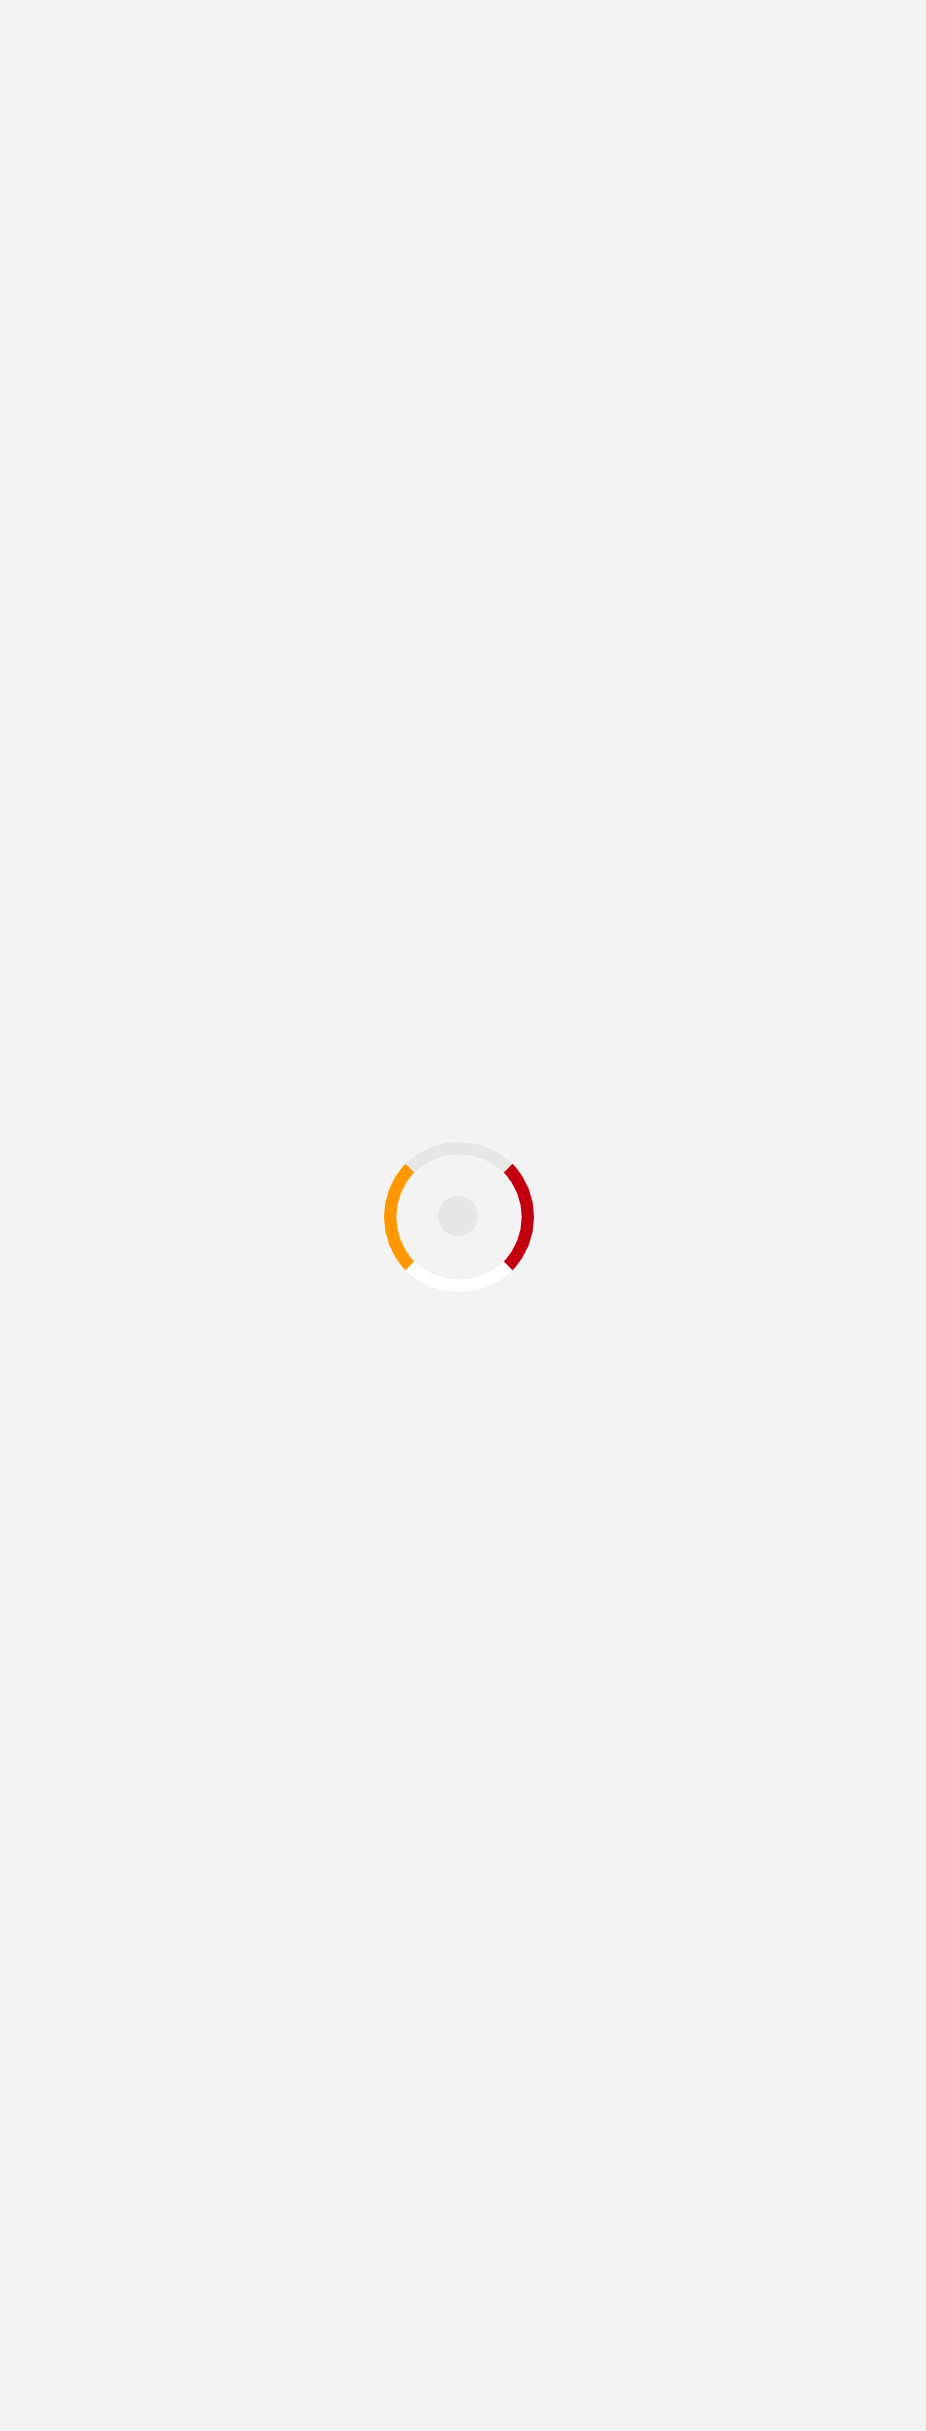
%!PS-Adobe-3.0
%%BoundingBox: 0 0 926 2431
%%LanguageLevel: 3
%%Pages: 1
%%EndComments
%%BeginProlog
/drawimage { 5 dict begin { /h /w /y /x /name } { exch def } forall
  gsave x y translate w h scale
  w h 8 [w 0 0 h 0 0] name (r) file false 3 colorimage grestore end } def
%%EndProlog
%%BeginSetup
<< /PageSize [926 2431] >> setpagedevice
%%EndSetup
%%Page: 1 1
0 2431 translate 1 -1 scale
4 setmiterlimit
0.953 setgray
0 0 926 2431 rectfill
(images/1.raw) 62 190 800 152 drawimage
(images/2.raw) 54 502 44 35 drawimage
(images/3.raw) 530 510 26 26 drawimage
(images/4.raw) 608 508 26 33 drawimage
(images/5.raw) 66 1212 28 22 drawimage
(images/6.raw) 216 1206 32 32 drawimage
0.765 0 0.063 setrgbcolor
12 setlinewidth
newpath 508 1168 moveto 534.5 1195 534.5 1239 508 1266 curveto stroke
1 0.596 0 setrgbcolor
newpath 410 1266 moveto 383.5 1239 383.5 1195 410 1168 curveto stroke
0.906 setgray
newpath 410 1168 moveto 437 1141.5 481 1141.5 508 1168 curveto stroke
1 setgray
newpath 508 1266 moveto 481 1292.5 437 1292.5 410 1266 curveto stroke
0.906 setgray
newpath 458 1216 20 0 360 arc closepath fill
showpage
%%EOF
